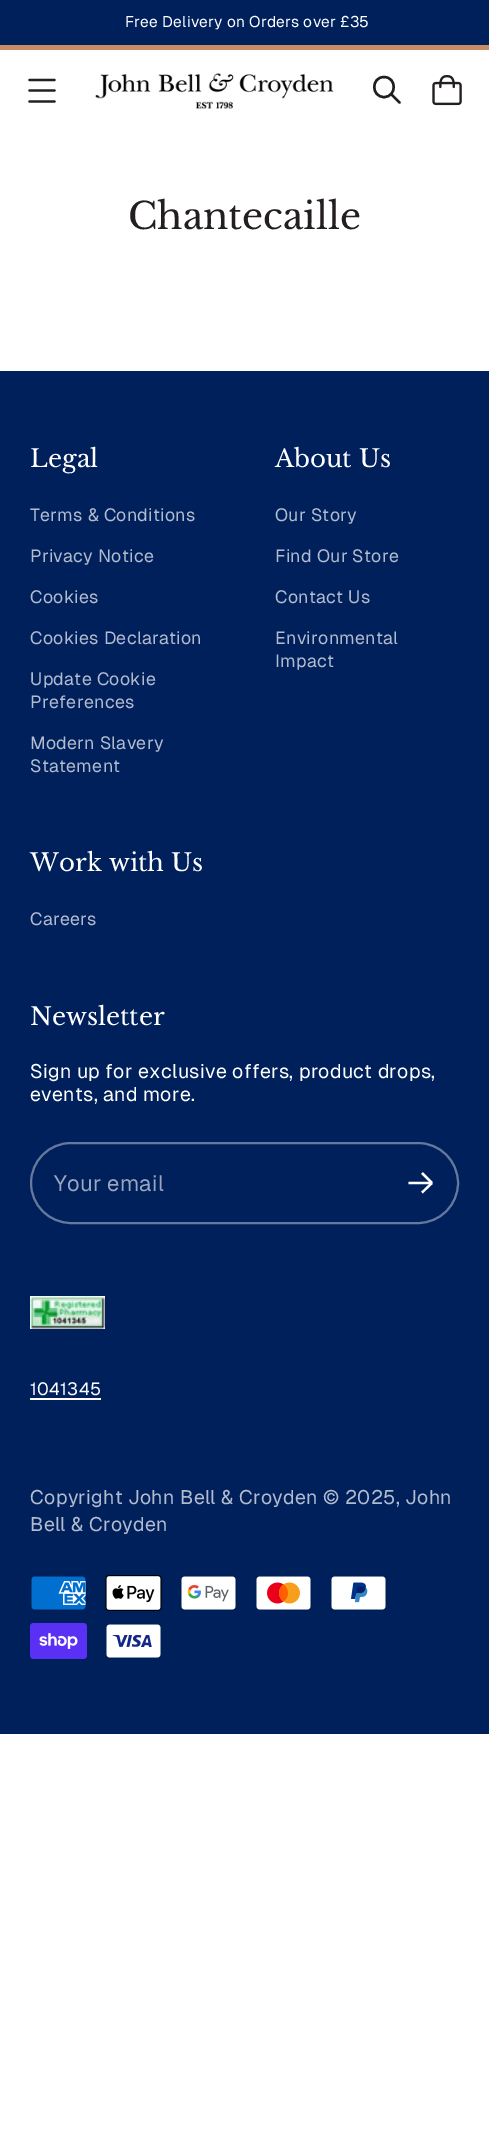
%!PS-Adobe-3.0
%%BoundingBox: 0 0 489 2137
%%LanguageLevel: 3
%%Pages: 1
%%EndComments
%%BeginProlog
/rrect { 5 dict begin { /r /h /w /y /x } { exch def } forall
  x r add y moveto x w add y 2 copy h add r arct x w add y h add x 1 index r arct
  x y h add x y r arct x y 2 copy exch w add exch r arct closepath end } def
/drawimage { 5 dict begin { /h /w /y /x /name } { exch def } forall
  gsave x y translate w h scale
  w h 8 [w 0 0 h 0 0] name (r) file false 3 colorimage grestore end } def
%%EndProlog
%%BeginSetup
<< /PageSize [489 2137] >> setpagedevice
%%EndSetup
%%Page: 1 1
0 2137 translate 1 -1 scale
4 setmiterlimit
1 setgray
0 0 489 2137 rectfill
0 0.125 0.361 setrgbcolor
0 0 489 45 rectfill
0.78 0.549 0.392 setrgbcolor
0 45 489 5 rectfill
0.137 0.122 0.125 setrgbcolor
2.3 setlinewidth
1 setlinecap
1 setlinejoin
newpath 29.5 90.5 moveto 54.5 90.5 lineto 29.5 101.5 moveto 54.5 101.5 lineto 29.5 80 moveto 54.5 80 lineto stroke
(images/1.raw) 95 73 239 36 drawimage
2.4 setlinewidth
newpath 384 97 moveto 397 97 397 77 384 77 curveto 371 77 371 97 384 97 curveto closepath 391.5 94.5 moveto 399.5 102.5 lineto stroke
(images/2.raw) 432 75 30 31 drawimage
0 0.125 0.361 setrgbcolor
0 371 489 1363 rectfill
0.4 0.475 0.616 setrgbcolor
2 setlinewidth
0 setlinecap
0 setlinejoin
31 1143 427 80 40 rrect stroke
1 setgray
2.2 setlinewidth
newpath 408.5 1183 moveto 432 1183 lineto 432 1183 moveto 422 1173 lineto 432 1183 moveto 422 1192.5 lineto stroke
(images/3.raw) 30 1296 75 33 drawimage
30 1398 71 2 rectfill
(images/4.raw) 30 1575 57 36 drawimage
(images/5.raw) 105 1575 57 36 drawimage
(images/6.raw) 180 1575 57 36 drawimage
(images/7.raw) 255 1575 57 36 drawimage
(images/8.raw) 330 1575 57 36 drawimage
(images/9.raw) 30 1623 57 36 drawimage
(images/10.raw) 105 1623 57 36 drawimage
/Geist-Regular [15.5 0 0 -15.5 0 0] selectfont
125 27 moveto 0.2 0 (Free Delivery on Orders over £35) ashow
/LibreBaskerville-Regular [36.75 0 0 -36.75 0 0] selectfont
0.137 0.122 0.125 setrgbcolor
128 229 moveto (Chantecaille) show
/LibreBaskerville-Regular [24.5 0 0 -24.5 0 0] selectfont
1 setgray
30 467 moveto (Legal) show
/Geist-Regular [17.75 0 0 -17.75 0 0] selectfont
0.702 0.737 0.808 setrgbcolor
30 521 moveto 0.3 0 (Terms & Conditions) ashow
30 562 moveto 0.3 0 (Privacy Notice) ashow
30 603 moveto 0.3 0 (Cookies) ashow
30 644 moveto 0.3 0 (Cookies Declaration) ashow
30 685 moveto 0.3 0 (Update Cookie) ashow
30 708 moveto 0.3 0 (Preferences) ashow
30 749 moveto 0.3 0 (Modern Slavery) ashow
30 772 moveto 0.3 0 (Statement) ashow
/LibreBaskerville-Regular [24.5 0 0 -24.5 0 0] selectfont
1 setgray
275 467 moveto (About Us) show
/Geist-Regular [17.75 0 0 -17.75 0 0] selectfont
0.702 0.737 0.808 setrgbcolor
275 521 moveto 0.3 0 (Our Story) ashow
275 562 moveto 0.3 0 (Find Our Store) ashow
275 603 moveto 0.3 0 (Contact Us) ashow
275 644 moveto 0.3 0 (Environmental) ashow
275 667 moveto 0.3 0 (Impact) ashow
/LibreBaskerville-Regular [24.5 0 0 -24.5 0 0] selectfont
1 setgray
30 871 moveto (Work with Us) show
/Geist-Regular [17.75 0 0 -17.75 0 0] selectfont
0.702 0.737 0.808 setrgbcolor
30 925 moveto 0.3 0 (Careers) ashow
/LibreBaskerville-Regular [24.5 0 0 -24.5 0 0] selectfont
1 setgray
30 1025 moveto (Newsletter) show
/Geist-Regular [19.6 0 0 -19.6 0 0] selectfont
30 1078 moveto 0.3 0 (Sign up for exclusive offers, product drops,) ashow
30 1101 moveto 0.3 0 (events, and more.) ashow
/Geist-Regular [22 0 0 -22 0 0] selectfont
0.6 0.651 0.745 setrgbcolor
54 1191 moveto 0.3 0 (Your email) ashow
/Geist-Regular [17.75 0 0 -17.75 0 0] selectfont
1 setgray
30 1395 moveto 0.3 0 (1041345) ashow
/Geist-Regular [19.6 0 0 -19.6 0 0] selectfont
0.702 0.737 0.808 setrgbcolor
30 1504 moveto 0.3 0 (Copyright John Bell & Croyden © 2025, John) ashow
30 1531 moveto 0.3 0 (Bell & Croyden) ashow
showpage
%%EOF
